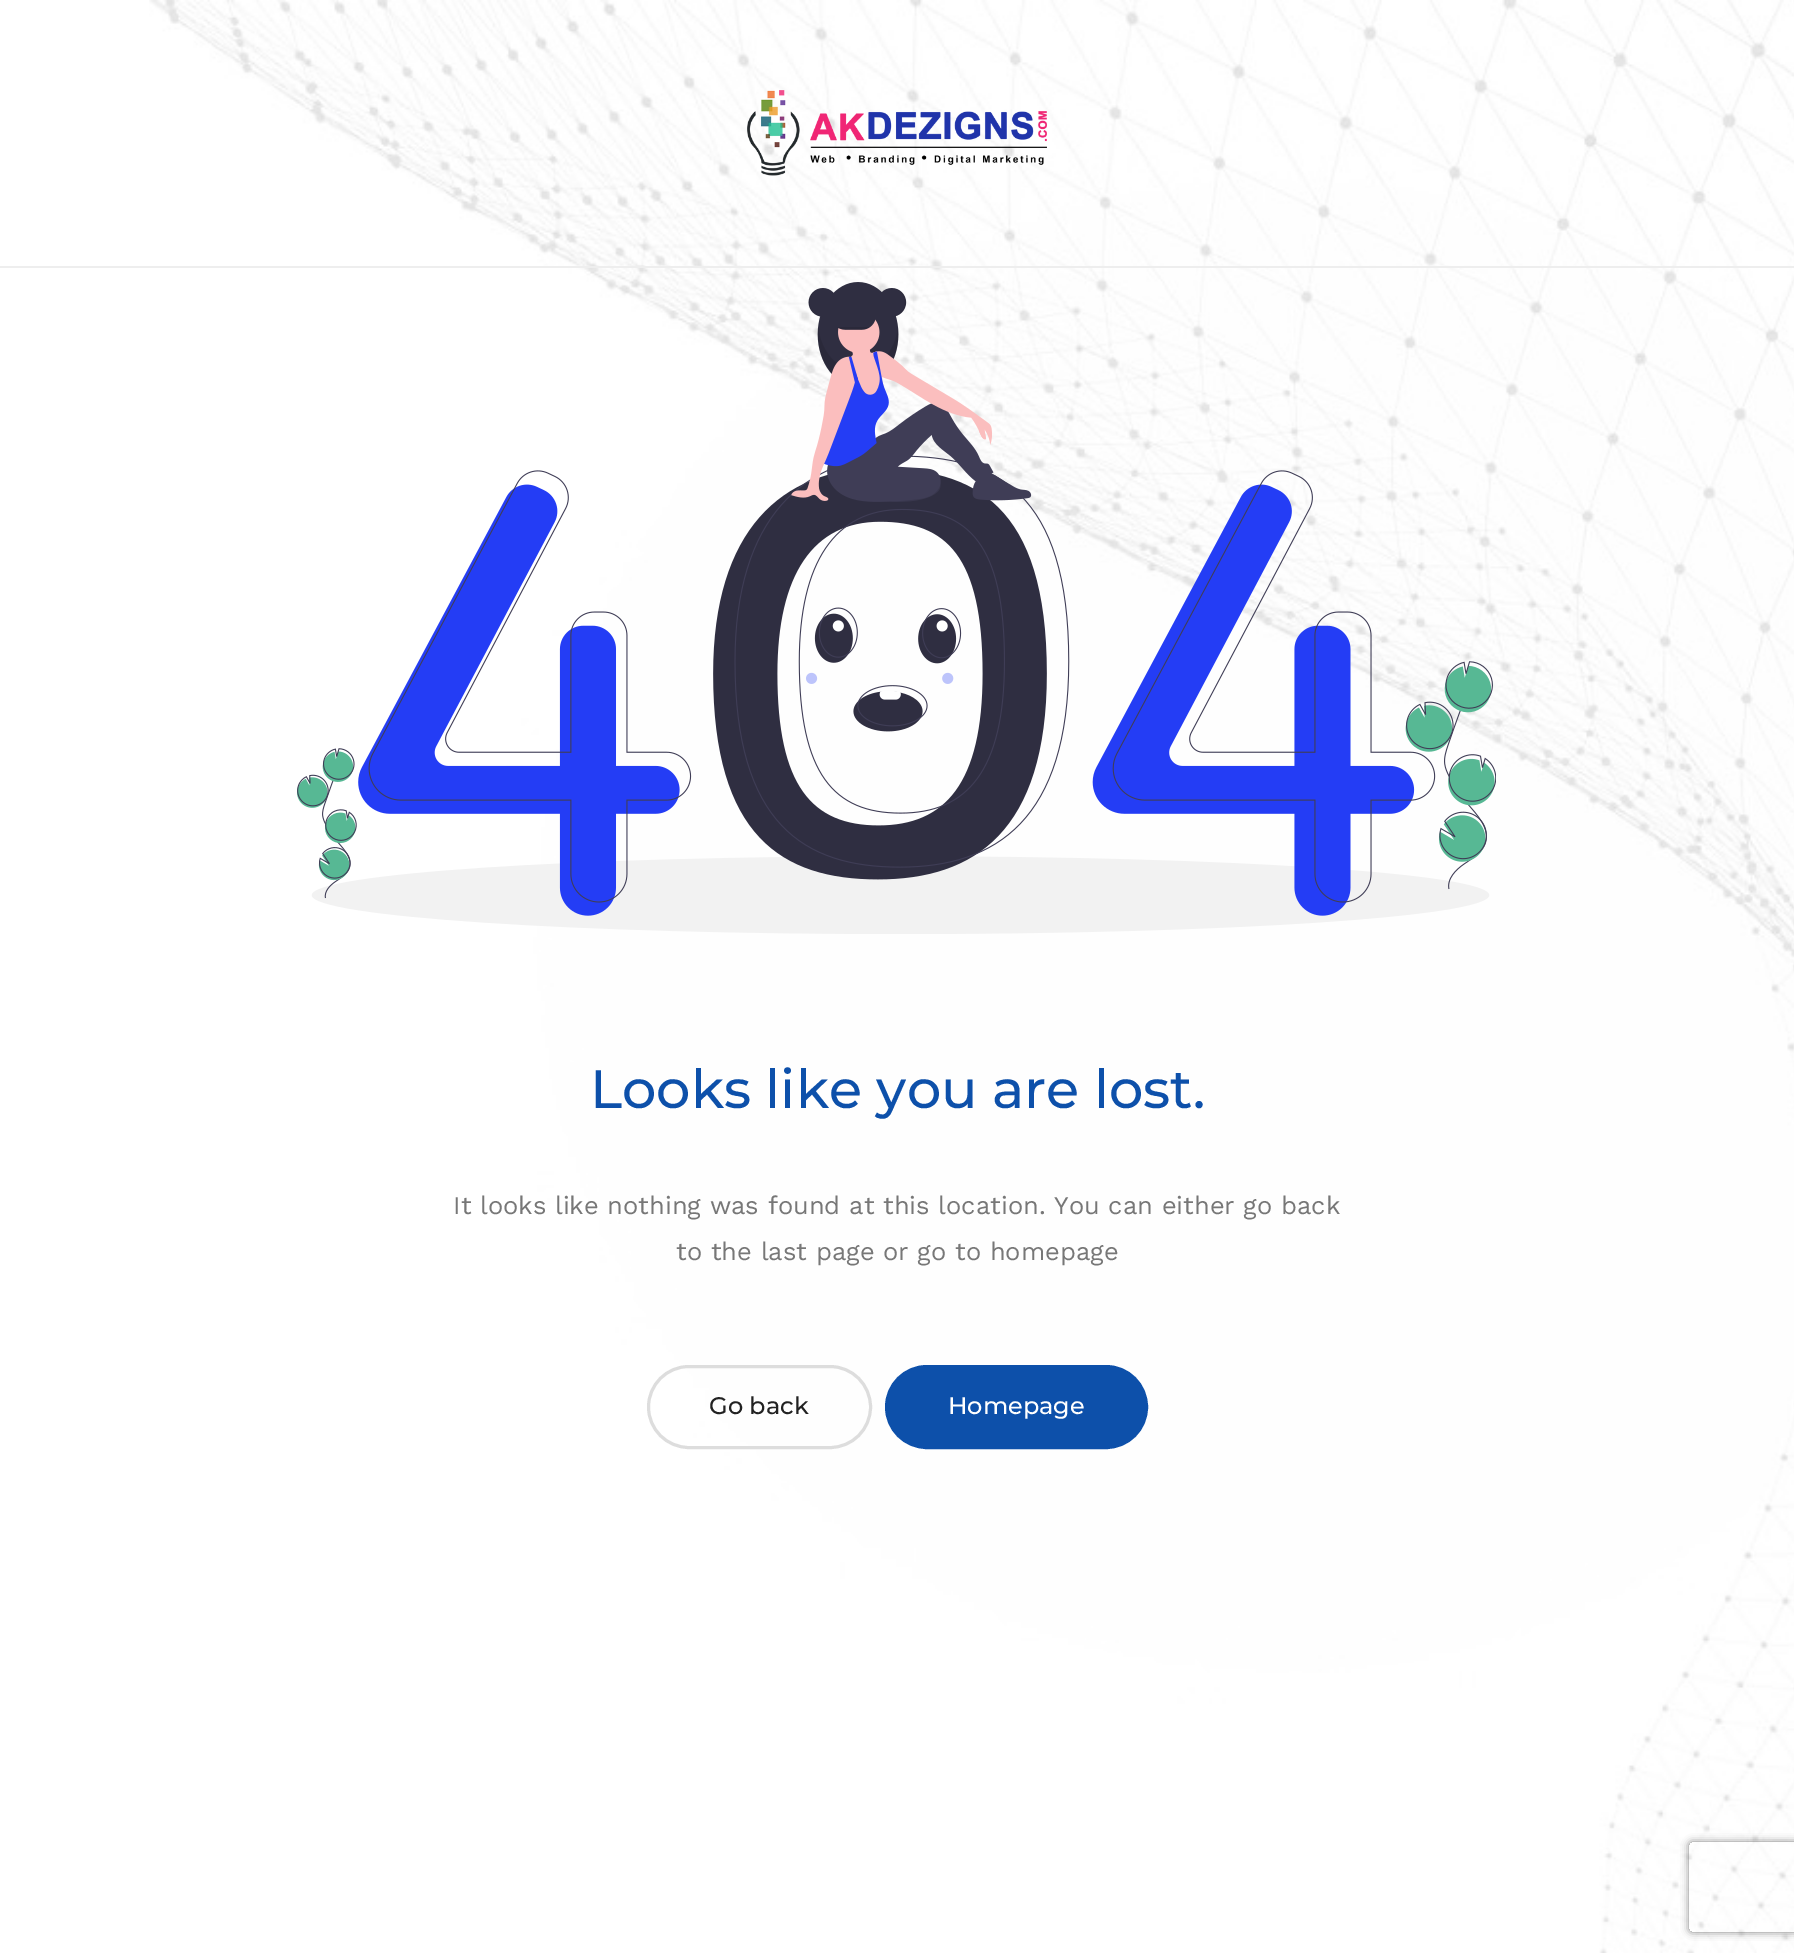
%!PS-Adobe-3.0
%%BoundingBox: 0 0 1794 1953
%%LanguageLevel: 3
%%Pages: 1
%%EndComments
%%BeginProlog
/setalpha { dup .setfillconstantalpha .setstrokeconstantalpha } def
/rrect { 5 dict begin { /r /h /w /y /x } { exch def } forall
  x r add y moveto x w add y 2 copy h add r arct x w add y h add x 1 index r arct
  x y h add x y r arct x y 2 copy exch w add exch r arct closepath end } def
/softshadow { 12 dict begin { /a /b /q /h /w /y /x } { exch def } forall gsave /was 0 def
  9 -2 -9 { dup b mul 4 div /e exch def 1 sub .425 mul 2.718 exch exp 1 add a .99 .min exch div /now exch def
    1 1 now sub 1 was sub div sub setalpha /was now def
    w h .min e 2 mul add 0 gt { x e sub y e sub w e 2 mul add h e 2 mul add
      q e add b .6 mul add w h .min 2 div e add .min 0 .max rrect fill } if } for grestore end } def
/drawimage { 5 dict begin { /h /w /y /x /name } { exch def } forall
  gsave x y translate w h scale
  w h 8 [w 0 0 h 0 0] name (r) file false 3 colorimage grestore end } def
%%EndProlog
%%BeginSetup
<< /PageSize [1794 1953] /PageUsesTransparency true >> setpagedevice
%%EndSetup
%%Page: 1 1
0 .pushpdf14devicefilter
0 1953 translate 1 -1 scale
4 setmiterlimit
1 setgray
0 0 1794 1953 rectfill
(images/1.raw) 149 0 1645 1953 drawimage
0.933 setgray
0 266 1794 2 rectfill
(images/2.raw) 747 90 300 86 drawimage
(images/3.raw) 297 282 1199 652 drawimage
0.867 setgray
3 setlinewidth
648.5 1366.5 222 81 40.5 rrect stroke
0.051 0.314 0.667 setrgbcolor
886.5 1366.5 260 81 40.5 rrect gsave fill grestore
stroke
gsave
newpath 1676 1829 moveto 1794 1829 lineto 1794 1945 lineto 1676 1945 lineto closepath 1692 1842 moveto 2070 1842 lineto 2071.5 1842 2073 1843.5 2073 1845 curveto 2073 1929 lineto 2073 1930.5 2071.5 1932 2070 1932 curveto 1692 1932 lineto 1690.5 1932 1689 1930.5 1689 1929 curveto 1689 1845 lineto 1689 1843.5 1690.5 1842 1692 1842 curveto closepath eoclip newpath
0.502 setgray
1689 1842 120 90 3 4 1 softshadow
grestore
/Montserrat-Medium [54 0 0 -54 0 0] selectfont
590 1108 moveto (Looks like you are lost.) show
/WorkSans-Regular [25.5 0 0 -25.5 0 0] selectfont
0.467 setgray
453 1214 moveto (It looks like nothing was found at this location. You can either go back) show
676 1260 moveto (to the last page or go to homepage) show
/Montserrat-Medium [24 0 0 -24 0 0] selectfont
0.133 setgray
709 1414 moveto (Go back) show
1 setgray
948 1414 moveto (Homepage) show
.poppdf14devicefilter showpage
%%EOF
